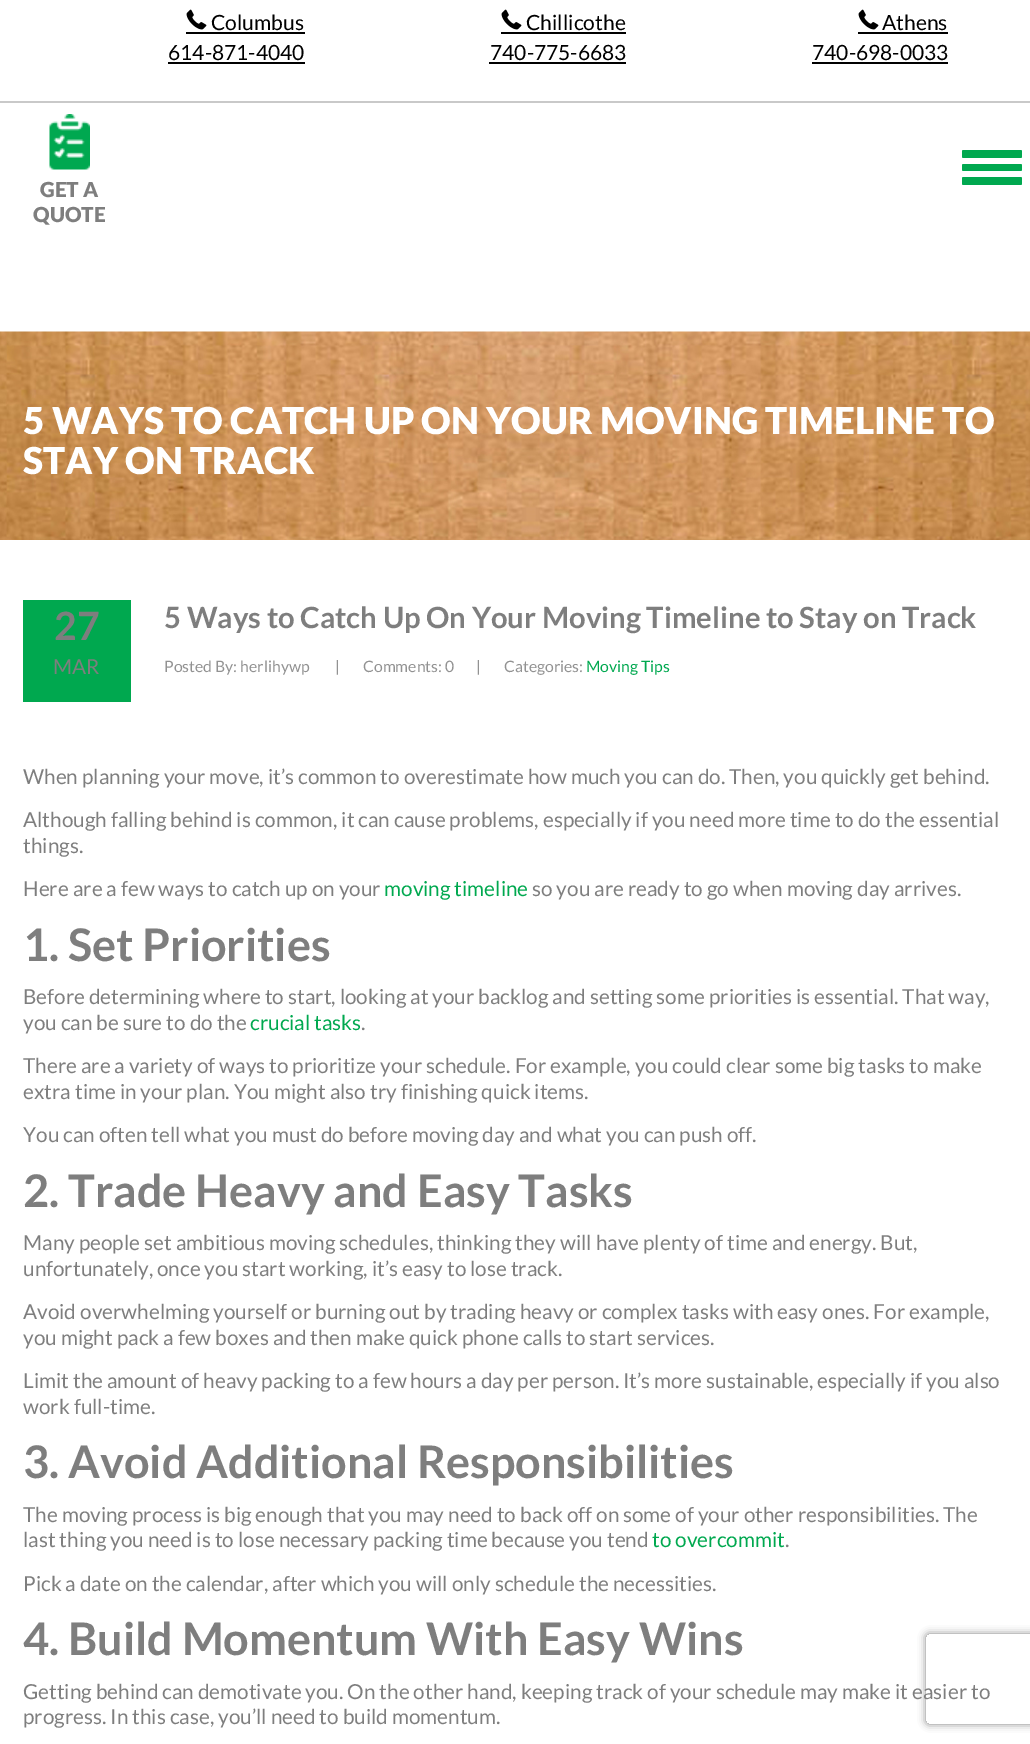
%!PS-Adobe-3.0
%%BoundingBox: 0 0 1030 1744
%%LanguageLevel: 3
%%Pages: 1
%%EndComments
%%BeginProlog
/setalpha { dup .setfillconstantalpha .setstrokeconstantalpha } def
/rrect { 5 dict begin { /r /h /w /y /x } { exch def } forall
  x r add y moveto x w add y 2 copy h add r arct x w add y h add x 1 index r arct
  x y h add x y r arct x y 2 copy exch w add exch r arct closepath end } def
/softshadow { 12 dict begin { /a /b /q /h /w /y /x } { exch def } forall gsave /was 0 def
  9 -2 -9 { dup b mul 4 div /e exch def 1 sub .425 mul 2.718 exch exp 1 add a .99 .min exch div /now exch def
    1 1 now sub 1 was sub div sub setalpha /was now def
    w h .min e 2 mul add 0 gt { x e sub y e sub w e 2 mul add h e 2 mul add
      q e add b .6 mul add w h .min 2 div e add .min 0 .max rrect fill } if } for grestore end } def
/drawimage { 5 dict begin { /h /w /y /x /name } { exch def } forall
  gsave x y translate w h scale
  w h 8 [w 0 0 h 0 0] name (r) file false 3 colorimage grestore end } def
%%EndProlog
%%BeginSetup
<< /PageSize [1030 1744] /PageUsesTransparency true >> setpagedevice
%%EndSetup
%%Page: 1 1
0 .pushpdf14devicefilter
0 1744 translate 1 -1 scale
4 setmiterlimit
1 setgray
0 0 1030 1744 rectfill
0.788 setgray
0 101 1030 2 rectfill
(images/1.raw) 186 9 21 21 drawimage
0 setgray
186 32 119 2 rectfill
168 62 137 2 rectfill
(images/1.raw) 501 9 21 21 drawimage
501 32 125 2 rectfill
489 62 137 2 rectfill
(images/1.raw) 858 9 21 21 drawimage
858 32 90 2 rectfill
812 62 136 2 rectfill
0 0.659 0.31 setrgbcolor
962 150 60 8 1.5 rrect fill
962 164 60 7 1.5 rrect fill
962 177 60 8 1.5 rrect fill
(images/2.raw) 49 114 41 56 drawimage
(images/3.raw) 0 331 1030 209 drawimage
23 600 108 102 rectfill
gsave
newpath 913 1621 moveto 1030 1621 lineto 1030 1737 lineto 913 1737 lineto closepath 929 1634 moveto 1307 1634 lineto 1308.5 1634 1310 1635.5 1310 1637 curveto 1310 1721 lineto 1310 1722.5 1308.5 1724 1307 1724 curveto 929 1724 lineto 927.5 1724 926 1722.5 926 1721 curveto 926 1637 lineto 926 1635.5 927.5 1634 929 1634 curveto closepath eoclip newpath
0.502 setgray
926 1634 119 90 3 4 1 softshadow
grestore
/Lato-Regular [21 0 0 -21 0 0] selectfont
0 setgray
211 30 moveto (Columbus) show
168 60 moveto (614-871-4040) show
526 30 moveto (Chillicothe) show
490 60 moveto (740-775-6683) show
882 30 moveto (Athens) show
812 60 moveto (740-698-0033) show
/Lato-Black [20.7 0 0 -20.7 0 0] selectfont
0.494 setgray
40 197 moveto (GET A) show
33 222 moveto (QUOTE) show
/Lato-Black [37.1 0 0 -37.1 0 0] selectfont
1 setgray
23 434 moveto (5 WAYS TO CATCH UP ON YOUR MOVING TIMELINE TO) show
23 474 moveto (STAY ON TRACK) show
/Lato-Bold [39 0 0 -39 0 0] selectfont
0.494 setgray
54 640 moveto (27) show
/Lato-Regular [20.7 0 0 -20.7 0 0] selectfont
53 674 moveto (MAR) show
/Lato-Bold [29.25 0 0 -29.25 0 0] selectfont
164 628 moveto (5 Ways to Catch Up On Your Moving Timeline to Stay on Track) show
/Lato-Regular [15.75 0 0 -15.75 0 0] selectfont
0.573 setgray
164 672 moveto (Posted By: herlihywp) show
335 672 moveto (|) show
363 672 moveto (Comments: 0) show
476 672 moveto (|) show
504 672 moveto (Categories:) show
0 0.659 0.31 setrgbcolor
586 672 moveto (Moving Tips) show
/Lato-Regular [20.7 0 0 -20.7 0 0] selectfont
0.494 setgray
23 784 moveto (When planning your move, it’s common to overestimate how much you can do. Then, you quickly get behind.) show
23 827 moveto (Although falling behind is common, it can cause problems, especially if you need more time to do the essential) show
23 853 moveto (things.) show
23 896 moveto (Here are a few ways to catch up on your) show
0 0.659 0.31 setrgbcolor
384 896 moveto (moving timeline) show
0.494 setgray
532 896 moveto (so you are ready to go when moving day arrives.) show
/Lato-Bold [45 0 0 -45 0 0] selectfont
23 961 moveto (1. Set Priorities) show
/Lato-Regular [20.7 0 0 -20.7 0 0] selectfont
23 1004 moveto (Before determining where to start, looking at your backlog and setting some priorities is essential. That way,) show
23 1030 moveto (you can be sure to do the) show
0 0.659 0.31 setrgbcolor
250 1030 moveto (crucial tasks) show
0.494 setgray
361 1030 moveto (.) show
23 1073 moveto (There are a variety of ways to prioritize your schedule. For example, you could clear some big tasks to make) show
23 1099 moveto (extra time in your plan. You might also try finishing quick items.) show
23 1142 moveto (You can often tell what you must do before moving day and what you can push off.) show
/Lato-Bold [45 0 0 -45 0 0] selectfont
23 1207 moveto (2. Trade Heavy and Easy Tasks) show
/Lato-Regular [20.7 0 0 -20.7 0 0] selectfont
23 1250 moveto (Many people set ambitious moving schedules, thinking they will have plenty of time and energy. But,) show
23 1276 moveto (unfortunately, once you start working, it’s easy to lose track.) show
23 1319 moveto (Avoid overwhelming yourself or burning out by trading heavy or complex tasks with easy ones. For example,) show
23 1345 moveto (you might pack a few boxes and then make quick phone calls to start services.) show
23 1388 moveto (Limit the amount of heavy packing to a few hours a day per person. It’s more sustainable, especially if you also) show
23 1414 moveto (work full-time.) show
/Lato-Bold [45 0 0 -45 0 0] selectfont
23 1478 moveto (3. Avoid Additional Responsibilities) show
/Lato-Regular [20.7 0 0 -20.7 0 0] selectfont
23 1522 moveto (The moving process is big enough that you may need to back off on some of your other responsibilities. The) show
23 1547 moveto (last thing you need is to lose necessary packing time because you tend) show
0 0.659 0.31 setrgbcolor
652 1547 moveto (to overcommit) show
0.494 setgray
785 1547 moveto (.) show
23 1591 moveto (Pick a date on the calendar, after which you will only schedule the necessities.) show
/Lato-Bold [45 0 0 -45 0 0] selectfont
23 1655 moveto (4. Build Momentum With Easy Wins) show
/Lato-Regular [20.7 0 0 -20.7 0 0] selectfont
23 1699 moveto (Getting behind can demotivate you. On the other hand, keeping track of your schedule may make it easier to) show
23 1724 moveto (progress. In this case, you’ll need to build momentum.) show
.poppdf14devicefilter showpage
%%EOF
